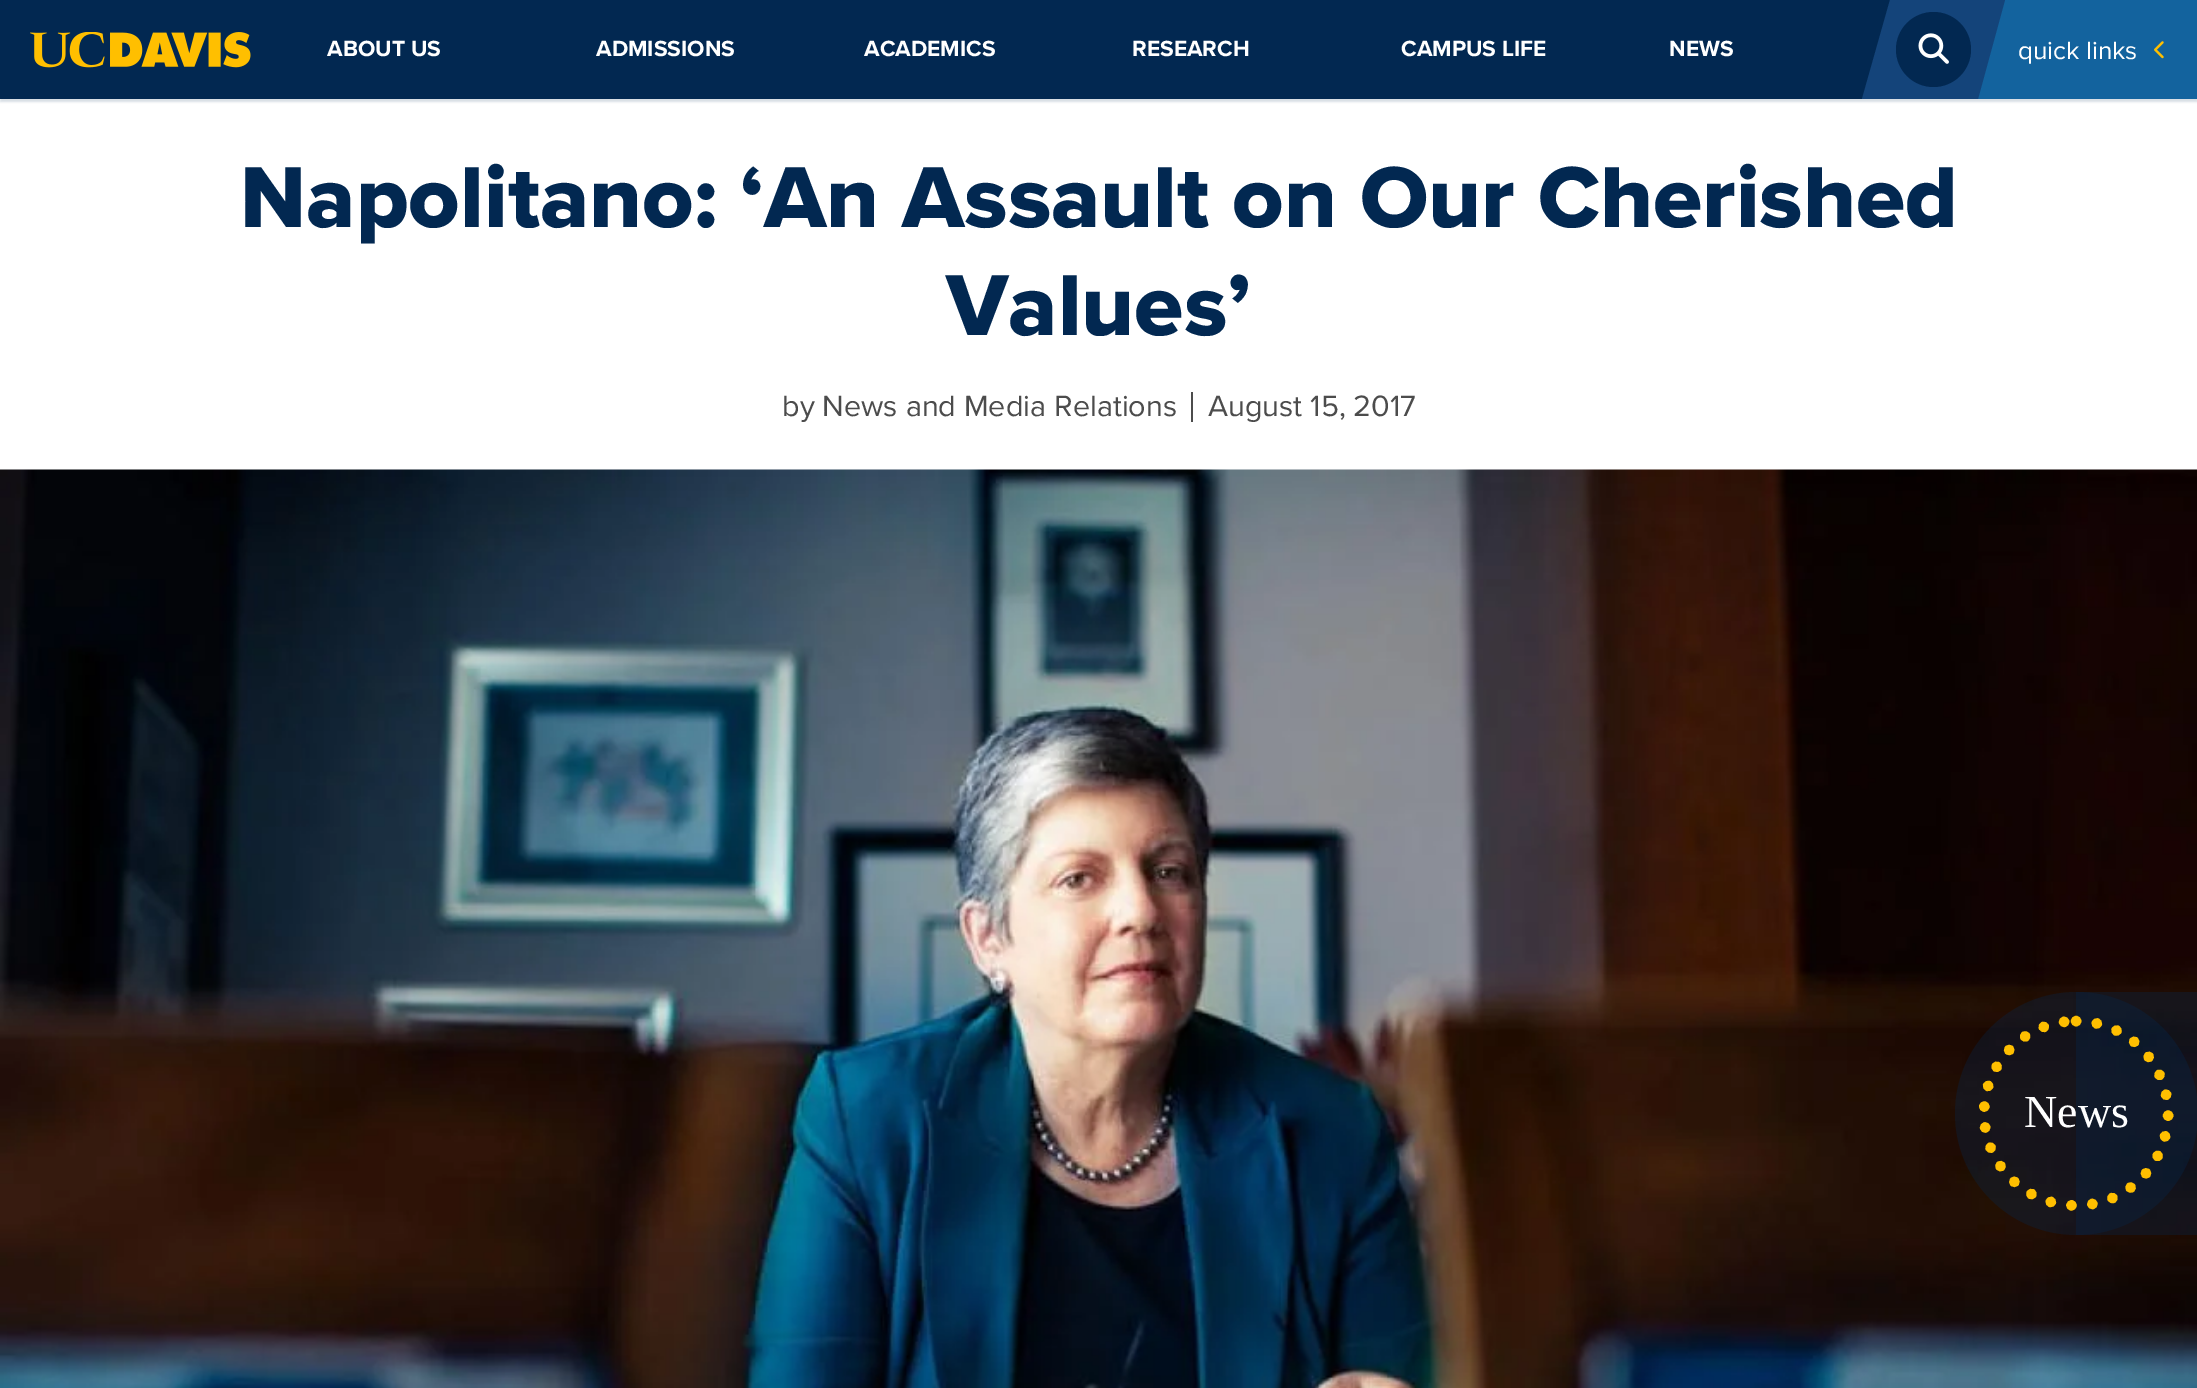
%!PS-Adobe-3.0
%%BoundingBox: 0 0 2197 1388
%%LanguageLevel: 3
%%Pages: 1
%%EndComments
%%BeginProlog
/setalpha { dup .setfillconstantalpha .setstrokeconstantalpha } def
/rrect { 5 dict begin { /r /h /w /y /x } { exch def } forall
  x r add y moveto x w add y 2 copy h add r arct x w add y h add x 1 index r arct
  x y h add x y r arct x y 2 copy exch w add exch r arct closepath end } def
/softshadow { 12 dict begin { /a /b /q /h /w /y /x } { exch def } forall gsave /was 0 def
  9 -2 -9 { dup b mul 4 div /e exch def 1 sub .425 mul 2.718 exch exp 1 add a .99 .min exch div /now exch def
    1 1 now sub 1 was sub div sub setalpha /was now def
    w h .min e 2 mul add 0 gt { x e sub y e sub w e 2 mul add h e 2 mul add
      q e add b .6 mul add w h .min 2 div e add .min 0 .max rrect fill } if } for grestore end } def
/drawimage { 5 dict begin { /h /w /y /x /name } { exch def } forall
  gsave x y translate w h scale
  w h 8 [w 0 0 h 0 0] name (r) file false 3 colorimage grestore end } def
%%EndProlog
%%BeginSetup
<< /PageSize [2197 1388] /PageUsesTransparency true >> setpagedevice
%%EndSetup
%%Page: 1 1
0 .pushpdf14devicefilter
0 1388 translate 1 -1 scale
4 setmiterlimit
1 setgray
0 0 2197 1388 rectfill
0.008 0.157 0.318 setrgbcolor
0 3 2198 99 0 1 0.15 softshadow
0 0 1890 99 rectfill
(images/1.raw) 30 32 221 36 drawimage
0.075 0.388 0.62 setrgbcolor
newpath 2000 0 moveto 1973 97 lineto 1973 99 lineto 2003 99 lineto 2003 0 lineto closepath fill
0.078 0.267 0.478 setrgbcolor
1892 0 84 99 rectfill
newpath 1890 0 moveto 1862 99 lineto 1892 99 lineto 1892 0 lineto closepath fill
0.008 0.157 0.318 setrgbcolor
newpath 1933.5 49.5 37.5 0 360 arc closepath fill
(images/2.raw) 1918 33 31 31 drawimage
0.075 0.388 0.62 setrgbcolor
2003 0 194 99 rectfill
0.078 0.267 0.478 setrgbcolor
newpath 1976 0 moveto 2005 0 lineto 1978 99 lineto 1976 99 lineto closepath fill
(images/3.raw) 2154 41 10 18 drawimage
0.298 setgray
1191 392 2 30 rectfill
(images/4.raw) 0 469 2197 919 drawimage
0.3 setalpha
0.008 0.157 0.318 setrgbcolor
2076 992 121 243 rectfill
newpath 2076.5 1113.5 121.5 0 360 arc closepath fill
/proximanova-Bold [22.75 0 0 -22.75 0 0] selectfont
1 setalpha
1 setgray
327 56 moveto (ABOUT US) show
596 56 moveto (ADMISSIONS) show
864 56 moveto (ACADEMICS) show
1132 56 moveto (RESEARCH) show
1401 56 moveto (CAMPUS LIFE) show
1669 56 moveto (NEWS) show
/proximanova-Regular [26 0 0 -26 0 0] selectfont
2018 59 moveto (quick links) show
/ProximaNova-ExtraBold [89.5 0 0 -89.5 0 0] selectfont
0.008 0.157 0.318 setrgbcolor
240 227 moveto (Napolitano: ‘An Assault on Our Cherished) show
946 335 moveto (Values’) show
/proximanova-Regular [30.5 0 0 -30.5 0 0] selectfont
0.298 setgray
782 416 moveto (by News and Media Relations) show
1208 416 moveto (August 15, 2017) show
/LiberationSerif-Regular [46 0 0 -46 0 0] selectfont
1 setgray
2024 1127 moveto (News) show
1 0.749 0 setrgbcolor
10.5 setlinewidth
1 setlinecap
[0 21] 0 setdash
newpath 2076 1021 moveto 2127 1021 2168 1062.5 2168 1113.5 curveto 2168 1164.5 2127 1205.5 2076 1205.5 curveto 2025 1205.5 1984 1164.5 1984 1113.5 curveto 1984 1062.5 2025 1021 2076 1021 curveto closepath stroke
.poppdf14devicefilter showpage
%%EOF
